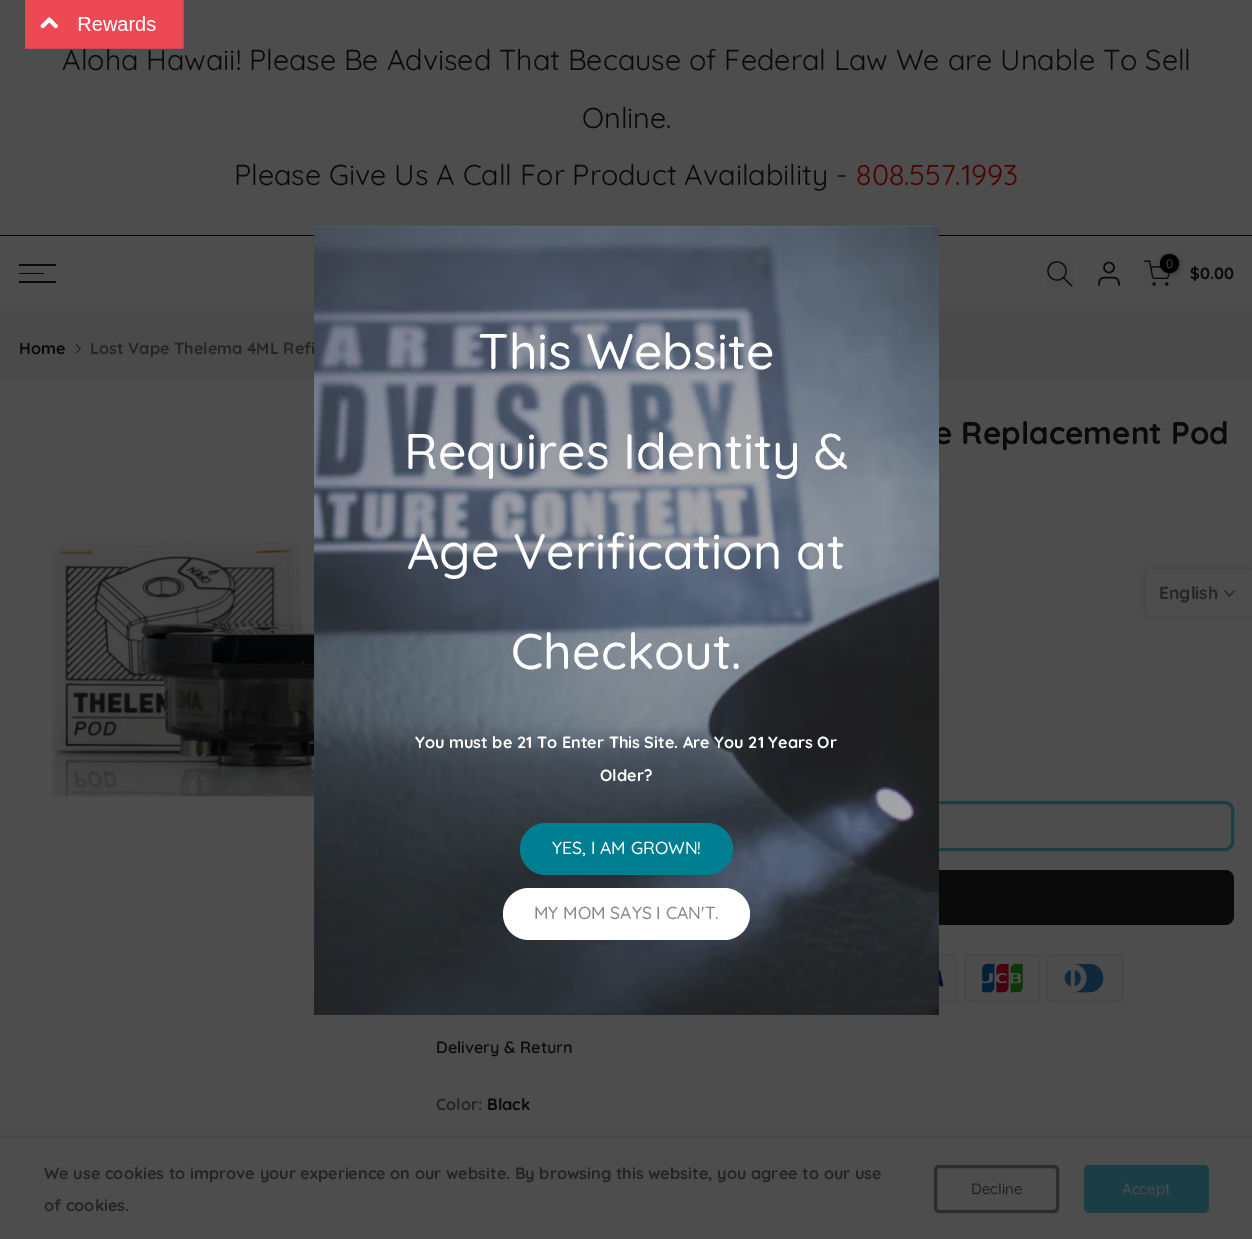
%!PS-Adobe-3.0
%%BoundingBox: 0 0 1252 1239
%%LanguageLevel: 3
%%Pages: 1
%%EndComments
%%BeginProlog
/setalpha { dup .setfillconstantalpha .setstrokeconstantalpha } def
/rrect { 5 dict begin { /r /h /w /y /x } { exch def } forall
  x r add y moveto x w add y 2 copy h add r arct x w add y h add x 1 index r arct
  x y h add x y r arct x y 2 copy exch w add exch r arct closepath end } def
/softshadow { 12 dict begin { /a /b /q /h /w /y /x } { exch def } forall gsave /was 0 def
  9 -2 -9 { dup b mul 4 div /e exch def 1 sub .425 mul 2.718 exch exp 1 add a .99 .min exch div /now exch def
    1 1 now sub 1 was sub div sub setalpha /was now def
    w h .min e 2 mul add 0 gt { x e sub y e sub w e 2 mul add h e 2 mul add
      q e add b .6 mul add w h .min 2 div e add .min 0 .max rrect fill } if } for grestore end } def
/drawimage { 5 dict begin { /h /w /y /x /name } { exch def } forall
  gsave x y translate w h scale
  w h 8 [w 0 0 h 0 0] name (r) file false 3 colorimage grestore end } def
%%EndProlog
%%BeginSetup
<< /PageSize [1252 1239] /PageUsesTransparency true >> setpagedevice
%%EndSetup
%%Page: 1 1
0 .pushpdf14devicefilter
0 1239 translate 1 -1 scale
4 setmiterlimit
0.302 setgray
0 0 1252 1239 rectfill
0 setgray
0 235 1252 1 rectfill
0.039 setgray
19 264 37 2 rectfill
19 273 25 1 rectfill
19 281 37 2 rectfill
(images/2.raw) 1047 261 26 26 drawimage
1.5 setlinewidth
newpath 1109 267.5 5 0 360 arc closepath stroke
1 setlinecap
1 setlinejoin
newpath 1119 285 moveto 1119 277 1115.5 277.5 1109 277.5 curveto 1102 277.5 1099 277 1099 285 curveto stroke
(images/3.raw) 1144 260 26 26 drawimage
0 setgray
1161 255 19 19 9.5 2 0.3 softshadow
newpath 1169.5 263.5 9.5 0 360 arc closepath fill
0.29 setgray
0 311 1252 68 rectfill
(images/4.raw) 75 344 6 10 drawimage
(images/5.raw) 51 542 263 255 drawimage
0.102 0.243 0.267 setrgbcolor
3 setlinewidth
0 setlinecap
0 setlinejoin
437.5 802.5 795 47 7.5 rrect stroke
0.039 setgray
436 870 798 55 9 rrect fill
(images/6.raw) 939 954 19 49 drawimage
(images/7.raw) 964 954 76 49 drawimage
(images/8.raw) 1046 954 78 49 drawimage
0 setgray
1146 569 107 47 5 3 0.17 softshadow
0.302 setgray
1146 569 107 47 5 rrect fill
0.161 setgray
1.2 setlinewidth
2 setlinecap
newpath 1234 591 moveto 1229.5 596 lineto 1225 591 lineto stroke
0 setgray
0 1138 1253 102 0 5.5 0.14 softshadow
0.302 setgray
0 1138 1252 101 rectfill
0.173 setgray
3 setlinewidth
0 setlinecap
935.5 1166.5 122 45 3.5 rrect stroke
0.102 0.243 0.267 setrgbcolor
1084 1165 125 48 5 rrect fill
/Quicksand-Regular [28.75 0 0 -28.75 0 0] selectfont
0.039 setgray
62 70 moveto (Aloha Hawaii! Please Be Advised That Because of Federal Law We are Unable To Sell) show
(images/1.raw) 25 0 159 49 drawimage
582 128 moveto (Online.) show
234 185 moveto (Please Give Us A Call For Product Availability -) show
0.302 0 0 setrgbcolor
856 185 moveto (808.557.1993) show
/Quicksand-Regular [12 0 0 -12 0 0] selectfont
0.302 setgray
1166 268 moveto (0) show
/Quicksand-Bold [16.25 0 0 -16.25 0 0] selectfont
0.039 setgray
1190 279 moveto ($0.00) show
19 354 moveto (Home) show
0.141 setgray
90 354 moveto (Lost Vape Thelema 4ML Refi) show
/Quicksand-Bold [31.25 0 0 -31.25 0 0] selectfont
0.039 setgray
934 444 moveto (e Replacement Pod) show
/Quicksand-SemiBold [16.25 0 0 -16.25 0 0] selectfont
436 1053 moveto (Delivery & Return) show
/Quicksand-Bold [16.25 0 0 -16.25 0 0] selectfont
0.141 setgray
436 1110 moveto (Color:) show
0.039 setgray
487 1110 moveto (Black) show
(images/9.raw) 314 226 625 789 drawimage
0.3 setalpha
0 setgray
314 226 625 789 rectfill
/Quicksand-Medium [50 0 0 -50 0 0] selectfont
1 setalpha
1 setgray
478 369 moveto (This Website) show
404 469 moveto (Requires Identity &) show
407 569 moveto (Age Verification at) show
511 669 moveto (Checkout.) show
/Quicksand-Bold [16.25 0 0 -16.25 0 0] selectfont
415 748 moveto (You must be 21 To Enter This Site. Are You 21 Years Or) show
600 781 moveto (Older?) show
0 0.494 0.569 setrgbcolor
520 823 213 52 26 rrect fill
/Quicksand-Medium [17.5 0 0 -17.5 0 0] selectfont
1 setgray
552 854 moveto (YES, I AM GROWN!) show
503 888 247 52 26 rrect fill
0.529 setgray
534 919 moveto (MY MOM SAYS I CAN'T.) show
/Quicksand-Bold [17.5 0 0 -17.5 0 0] selectfont
0.141 setgray
1159 599 moveto (English) show
/Quicksand-Bold [16.25 0 0 -16.25 0 0] selectfont
44 1179 moveto (We use cookies to improve your experience on our website. By browsing this website, you agree to our use) show
44 1211 moveto (of cookies.) show
/Quicksand-Medium [15 0 0 -15 0 0] selectfont
0.118 setgray
971 1194 moveto (Decline) show
0.302 setgray
1122 1194 moveto (Accept) show
.poppdf14devicefilter showpage
%%EOF
